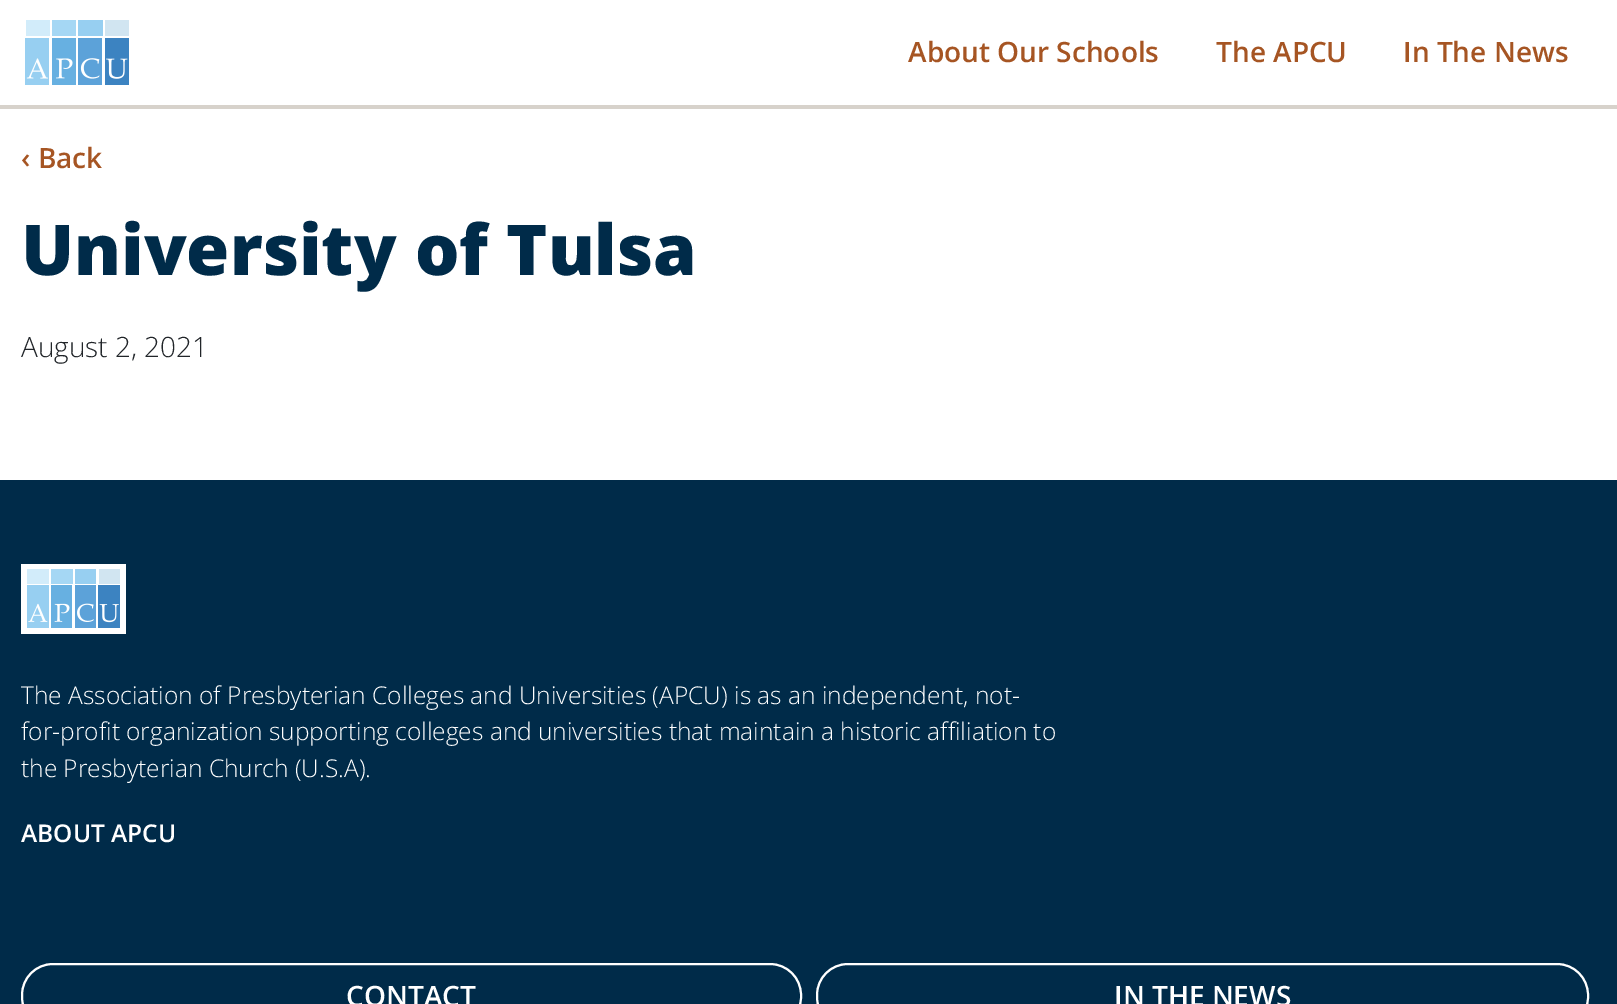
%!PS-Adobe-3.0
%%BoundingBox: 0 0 1617 1004
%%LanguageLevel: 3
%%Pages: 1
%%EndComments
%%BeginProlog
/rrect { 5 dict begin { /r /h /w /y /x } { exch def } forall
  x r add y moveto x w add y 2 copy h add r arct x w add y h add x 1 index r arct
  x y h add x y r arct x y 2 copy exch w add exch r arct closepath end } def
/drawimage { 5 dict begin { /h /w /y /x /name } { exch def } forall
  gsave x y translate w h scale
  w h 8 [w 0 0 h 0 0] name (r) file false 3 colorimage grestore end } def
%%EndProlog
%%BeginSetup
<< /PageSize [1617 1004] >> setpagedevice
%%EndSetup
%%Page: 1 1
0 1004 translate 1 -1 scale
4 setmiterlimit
1 setgray
0 0 1617 1004 rectfill
0.843 0.824 0.796 setrgbcolor
0 105 1617 4 rectfill
(images/1.raw) 25 20 104 65 drawimage
0 0.169 0.286 setrgbcolor
0 480 1617 524 rectfill
1 setgray
21 564 105 70 rectfill
(images/2.raw) 27 569 93 59 drawimage
2 setlinewidth
22 964 779 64 31 rrect stroke
817 964 771 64 31 rrect stroke
/OpenSans-SemiBold [28 0 0 -28 0 0] selectfont
0.651 0.333 0.137 setrgbcolor
908 62 moveto (About Our Schools) show
1216 62 moveto (The APCU) show
1403 62 moveto (In The News) show
21 168 moveto (‹ Back) show
/OpenSans-ExtraBold [70 0 0 -70 0 0] selectfont
0 0.169 0.286 setrgbcolor
21 275 moveto (University of Tulsa) show
/OpenSans-Light [28 0 0 -28 0 0] selectfont
0.129 0.145 0.161 setrgbcolor
21 357 moveto (August 2, 2021) show
/OpenSans-Light [24.5 0 0 -24.5 0 0] selectfont
1 setgray
21 704 moveto (The Association of Presbyterian Colleges and Universities \(APCU\) is as an independent, not-) show
21 740 moveto (for-profit organization supporting colleges and universities that maintain a historic affiliation to) show
21 777 moveto (the Presbyterian Church \(U.S.A\).) show
/OpenSans-SemiBold [24.5 0 0 -24.5 0 0] selectfont
21 842 moveto (ABOUT APCU) show
/OpenSans-SemiBold [28 0 0 -28 0 0] selectfont
346 1006 moveto (CONTACT) show
1114 1006 moveto (IN THE NEWS) show
showpage
%%EOF
